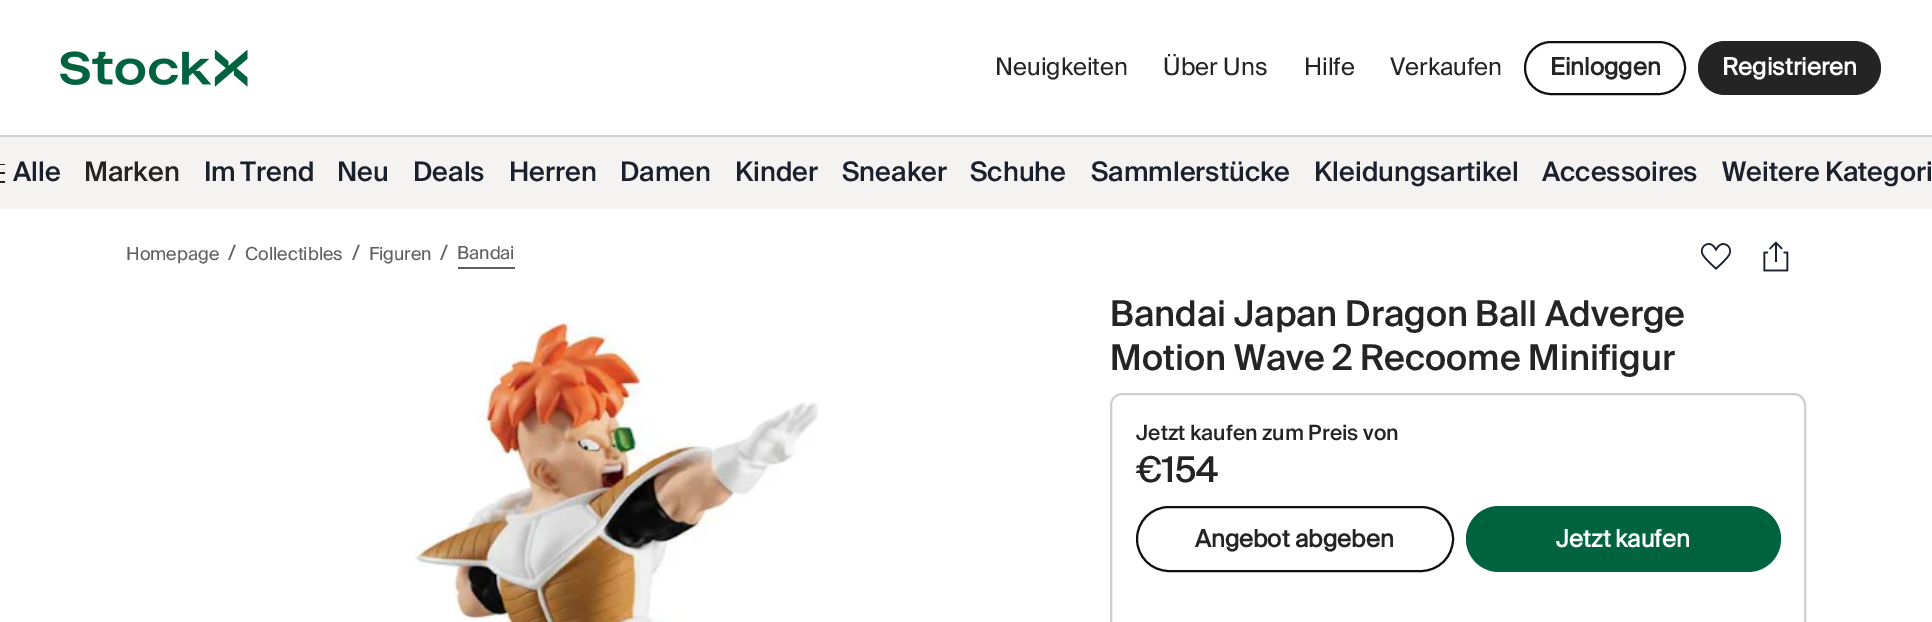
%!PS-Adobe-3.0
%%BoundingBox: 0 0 1932 622
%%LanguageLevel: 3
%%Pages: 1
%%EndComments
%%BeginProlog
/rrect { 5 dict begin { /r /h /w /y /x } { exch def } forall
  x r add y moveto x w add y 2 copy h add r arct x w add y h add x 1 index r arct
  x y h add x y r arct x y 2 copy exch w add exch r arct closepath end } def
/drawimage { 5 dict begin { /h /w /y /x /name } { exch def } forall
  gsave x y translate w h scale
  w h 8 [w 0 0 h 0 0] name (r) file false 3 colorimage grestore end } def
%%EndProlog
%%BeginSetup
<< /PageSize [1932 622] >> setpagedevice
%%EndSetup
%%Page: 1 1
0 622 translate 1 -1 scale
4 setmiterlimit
1 setgray
0 0 1932 622 rectfill
0.812 setgray
0 135 1932 2 rectfill
(images/1.raw) 60 50 188 37 drawimage
0.059 setgray
2 setlinewidth
1525 42 160 52 26 rrect stroke
0.141 setgray
1698 41 183 54 27 rrect fill
0.957 0.953 0.945 setrgbcolor
0 137 1932 72 rectfill
0.141 setgray
0 164 5 1 rectfill
0 172 5 2 rectfill
0 181 5 2 rectfill
0.373 setgray
458 267 57 2 rectfill
(images/2.raw) 1700 243 31 27 drawimage
(images/3.raw) 1763 241 26 31 drawimage
(images/4.raw) 414 320 405 302 drawimage
0.812 setgray
1111 394 694 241 11 rrect stroke
0.059 setgray
1137 507 316 64 32 rrect stroke
0 0.388 0.251 setrgbcolor
1466 506 315 66 33 rrect fill
/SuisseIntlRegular-Regular [24 0 0 -24 0 0] selectfont
0.141 setgray
995 75 moveto (Neuigkeiten) show
1163 75 moveto (Über Uns) show
1304 75 moveto (Hilfe) show
1390 75 moveto (Verkaufen) show
/SuisseIntlRegular-Bold [24 0 0 -24 0 0] selectfont
1550 75 moveto (Einloggen) show
1 setgray
1722 75 moveto (Registrieren) show
/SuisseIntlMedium-Medium [27 0 0 -27 0 0] selectfont
0.102 0.125 0.173 setrgbcolor
13 181 moveto (Alle) show
0.141 setgray
84 181 moveto (Marken) show
0.102 0.125 0.173 setrgbcolor
204 181 moveto -2 0 32 (Im Trend) widthshow
337 181 moveto (Neu) show
413 181 moveto (Deals) show
509 181 moveto (Herren) show
620 181 moveto (Damen) show
735 181 moveto (Kinder) show
842 181 moveto (Sneaker) show
970 181 moveto (Schuhe) show
1091 181 moveto (Sammlerstücke) show
1314 181 moveto (Kleidungsartikel) show
1542 181 moveto (Accessoires) show
1722 181 moveto -1 0 32 (Weitere Kategori) widthshow
/SuisseIntlRegular-Regular [18 0 0 -18 0 0] selectfont
0.373 setgray
126 260 moveto (Homepage) show
/SuisseIntlRegular-Regular [21 0 0 -21 0 0] selectfont
228 260 moveto (/) show
/SuisseIntlRegular-Regular [18 0 0 -18 0 0] selectfont
245 260 moveto (Collectibles) show
/SuisseIntlRegular-Regular [21 0 0 -21 0 0] selectfont
352 260 moveto (/) show
/SuisseIntlRegular-Regular [18 0 0 -18 0 0] selectfont
369 260 moveto (Figuren) show
/SuisseIntlRegular-Regular [21 0 0 -21 0 0] selectfont
440 260 moveto (/) show
/SuisseIntlRegular-Regular [18 0 0 -18 0 0] selectfont
457 259 moveto (Bandai) show
/SuisseIntlMedium-Medium [35.6 0 0 -35.6 0 0] selectfont
0.141 setgray
1110 326 moveto -0.5 0 32 (Bandai Japan Dragon Ball Adverge) widthshow
1110 370 moveto -0.5 0 32 (Motion Wave 2 Recoome Minifigur) widthshow
/SuisseIntlMedium-Medium [21 0 0 -21 0 0] selectfont
1136 440 moveto -0.5 0 32 0.1 0 (Jetzt kaufen zum Preis von) awidthshow
/SuisseIntlMedium-Medium [35.6 0 0 -35.6 0 0] selectfont
1136 482 moveto (€154) show
/SuisseIntlRegular-Bold [24 0 0 -24 0 0] selectfont
1195 547 moveto (Angebot abgeben) show
1 setgray
1556 547 moveto -1 0 32 (Jetzt kaufen) widthshow
showpage
%%EOF
